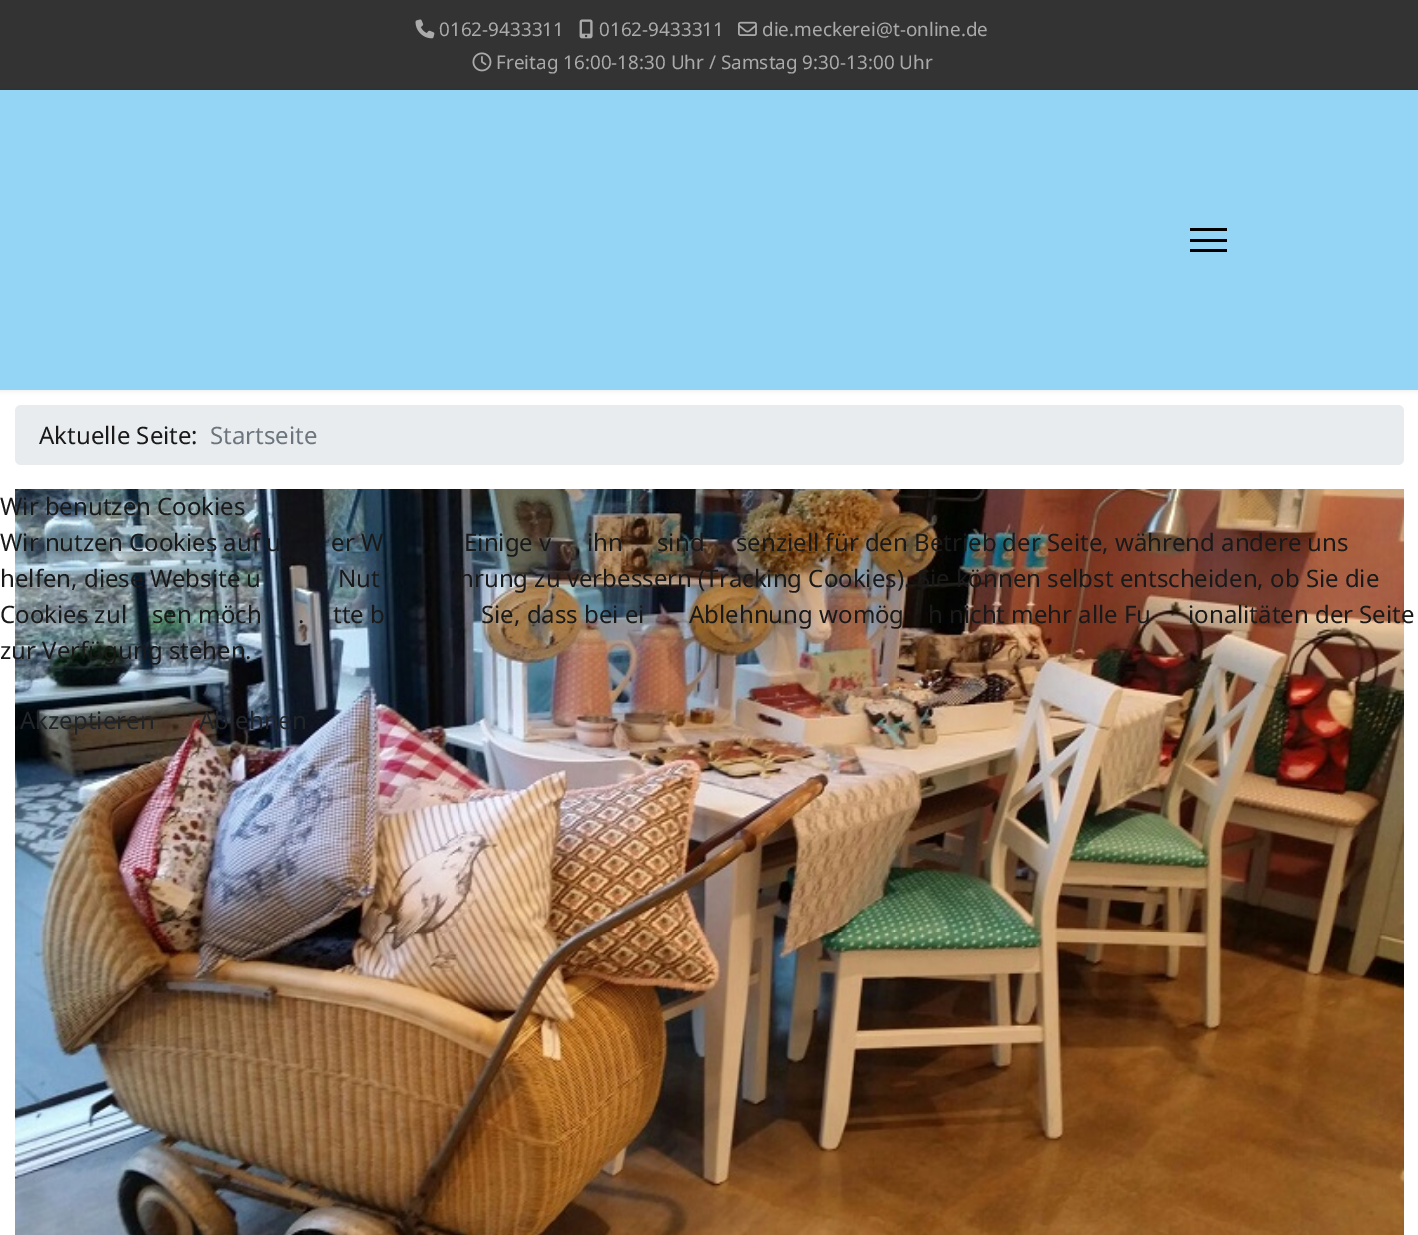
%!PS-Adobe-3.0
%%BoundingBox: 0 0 1418 1235
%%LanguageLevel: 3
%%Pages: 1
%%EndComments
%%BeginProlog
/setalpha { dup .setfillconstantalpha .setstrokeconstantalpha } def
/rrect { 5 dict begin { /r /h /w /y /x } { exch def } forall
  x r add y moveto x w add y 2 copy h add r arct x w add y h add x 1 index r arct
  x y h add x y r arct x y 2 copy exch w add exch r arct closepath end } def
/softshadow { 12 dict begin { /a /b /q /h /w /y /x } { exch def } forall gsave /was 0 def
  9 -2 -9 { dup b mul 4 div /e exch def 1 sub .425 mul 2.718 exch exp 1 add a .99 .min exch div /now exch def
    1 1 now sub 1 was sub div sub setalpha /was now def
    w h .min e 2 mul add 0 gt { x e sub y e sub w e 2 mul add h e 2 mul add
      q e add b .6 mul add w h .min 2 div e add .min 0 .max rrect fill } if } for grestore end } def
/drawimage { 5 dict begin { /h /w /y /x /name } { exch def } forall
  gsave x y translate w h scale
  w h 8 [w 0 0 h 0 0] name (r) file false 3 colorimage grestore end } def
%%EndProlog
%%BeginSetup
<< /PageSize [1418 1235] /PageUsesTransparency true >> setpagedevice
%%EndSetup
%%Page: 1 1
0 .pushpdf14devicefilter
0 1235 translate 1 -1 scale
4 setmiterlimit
1 setgray
0 0 1418 1235 rectfill
0.2 setgray
0 0 1418 90 rectfill
(images/1.raw) 415 19 20 20 drawimage
(images/2.raw) 579 19 14 20 drawimage
(images/3.raw) 738 21 19 15 drawimage
(images/4.raw) 472 52 20 20 drawimage
0 setgray
0 90 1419 300 0 3 0.1 softshadow
0.58 0.831 0.957 setrgbcolor
0 90 1418 300 rectfill
0 setgray
1190 228 37 3 rectfill
1190 239 37 3 rectfill
1190 249 37 3 rectfill
0.914 0.925 0.937 setrgbcolor
15 405 1389 60 6 rrect fill
(images/5.raw) 15 489 1389 746 drawimage
/NotoSans-Regular [18.9 0 0 -18.9 0 0] selectfont
0.667 setgray
439 36 moveto (0162-9433311) show
599 36 moveto (0162-9433311) show
762 36 moveto (die.meckerei@t-online.de) show
496 69 moveto (Freitag 16:00-18:30 Uhr / Samstag 9:30-13:00 Uhr) show
/NotoSans-Regular [24 0 0 -24 0 0] selectfont
0.098 0.098 0.102 setrgbcolor
39 444 moveto (Aktuelle Seite:) show
0.424 0.459 0.49 setrgbcolor
210 444 moveto (Startseite) show
0.098 0.098 0.102 setrgbcolor
0 515 moveto (Wir benutzen Cookies) show
0 551 moveto (Wir nutzen Cookies auf u) show
331 551 moveto (er W) show
464 551 moveto (Einige v) show
587 551 moveto (ihn) show
657 551 moveto (sind) show
736 551 moveto (senziell für den Betrieb der Seite, während andere uns) show
0 587 moveto (helfen, diese Website u) show
338 587 moveto (Nut) show
459 587 moveto (hrung zu verbessern \(Tracking Cookies\). Sie können selbst entscheiden, ob Sie die) show
0 623 moveto (Cookies zul) show
152 623 moveto (sen möch) show
298 623 moveto (.) show
333 623 moveto (tte b) show
481 623 moveto (Sie, dass bei ei) show
689 623 moveto (Ablehnung womög) show
928 623 moveto (h nicht mehr alle Fu) show
1188 623 moveto (ionalitäten der Seite) show
0 659 moveto (zur Verfügung stehen.) show
0.129 0.145 0.161 setrgbcolor
20 729 moveto (Akzeptieren) show
199 729 moveto (Ablehnen) show
.poppdf14devicefilter showpage
%%EOF
